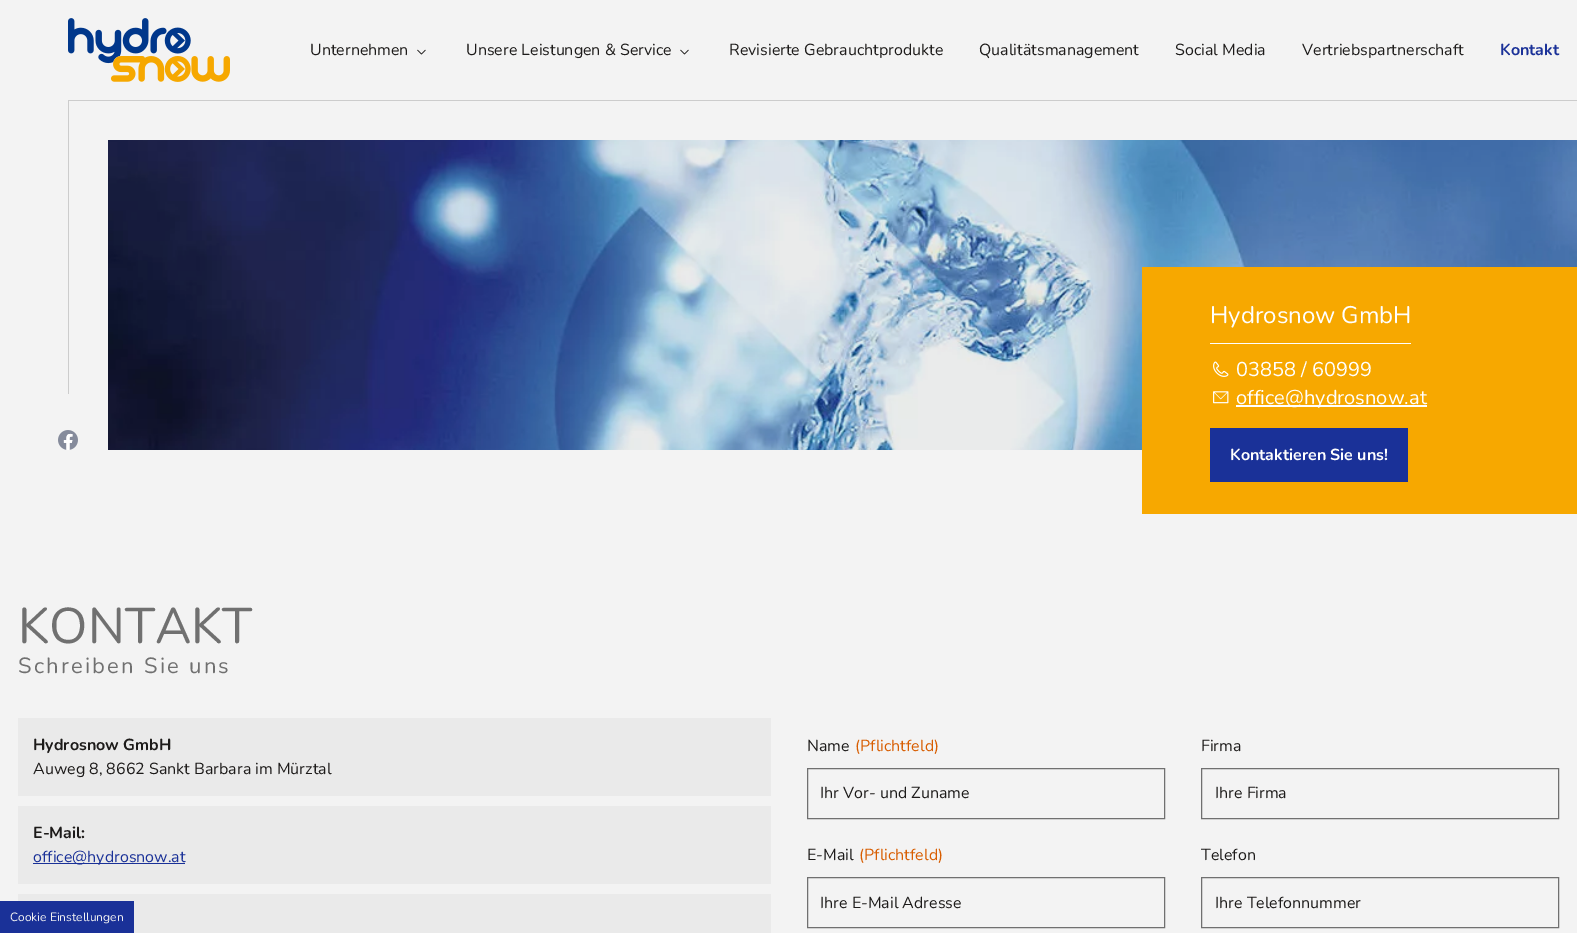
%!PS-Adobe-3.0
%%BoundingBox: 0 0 1577 933
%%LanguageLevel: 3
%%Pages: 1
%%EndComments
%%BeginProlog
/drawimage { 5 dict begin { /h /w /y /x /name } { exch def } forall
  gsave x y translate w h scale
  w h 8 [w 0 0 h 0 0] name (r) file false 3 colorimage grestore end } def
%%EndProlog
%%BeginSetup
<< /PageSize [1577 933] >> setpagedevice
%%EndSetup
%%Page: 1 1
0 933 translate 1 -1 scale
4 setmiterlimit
0.953 setgray
0 0 1577 933 rectfill
(images/1.raw) 68 18 162 64 drawimage
(images/2.raw) 417 49 9 6 drawimage
(images/3.raw) 680 49 9 6 drawimage
0.8 setgray
68 100 1509 1 rectfill
68 100 1 294 rectfill
(images/4.raw) 108 140 1469 310 drawimage
(images/5.raw) 58 430 20 20 drawimage
0.969 0.659 0 setrgbcolor
1142 267 435 247 rectfill
1 setgray
1210 343 201 1 rectfill
(images/6.raw) 1213 361 16 16 drawimage
(images/7.raw) 1213 391 16 13 drawimage
1236 405 191 2 rectfill
0.102 0.192 0.596 setrgbcolor
1210 428 198 54 rectfill
0.918 setgray
18 718 753 78 rectfill
18 806 753 78 rectfill
0.102 0.192 0.596 setrgbcolor
33 863 152 1 rectfill
0.918 setgray
18 894 753 39 rectfill
0.439 setgray
807.5 768.5 357 50 rectstroke
807.5 877.5 357 50 rectstroke
1201.5 768.5 357 50 rectstroke
1201.5 877.5 357 50 rectstroke
0.102 0.192 0.596 setrgbcolor
0 901 134 32 rectfill
/Nunito-ExtraLight [16 0 0 -16 0 0] selectfont
0.114 0.106 0.102 setrgbcolor
310 55 moveto (Unternehmen) show
466 55 moveto (Unsere Leistungen & Service) show
729 55 moveto (Revisierte Gebrauchtprodukte) show
979 55 moveto (Qualitätsmanagement) show
1175 55 moveto (Social Media) show
1302 55 moveto (Vertriebspartnerschaft) show
/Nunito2-ExtraLight [16 0 0 -16 0 0] selectfont
0.102 0.192 0.596 setrgbcolor
1500 55 moveto (Kontakt) show
/Nunito-ExtraLight [24 0 0 -24 0 0] selectfont
1 setgray
1210 323 moveto (Hydrosnow GmbH) show
/Nunito-ExtraLight [20 0 0 -20 0 0] selectfont
1236 376 moveto (03858 / 60999) show
1236 404 moveto (office@hydrosnow.at) show
/Nunito2-ExtraLight [16 0 0 -16 0 0] selectfont
1230 460 moveto (Kontaktieren Sie uns!) show
/Nunito-ExtraLight [50 0 0 -50 0 0] selectfont
0.439 setgray
18 643 moveto (KONTAKT) show
/Nunito-ExtraLight [22 0 0 -22 0 0] selectfont
18 673 moveto 2.25 0 (Schreiben Sie uns) ashow
/Nunito2-ExtraLight [16 0 0 -16 0 0] selectfont
0.114 0.106 0.102 setrgbcolor
33 750 moveto (Hydrosnow GmbH) show
/Nunito-ExtraLight [16 0 0 -16 0 0] selectfont
33 774 moveto (Auweg 8, 8662 Sankt Barbara im Mürztal) show
/Nunito2-ExtraLight [16 0 0 -16 0 0] selectfont
33 838 moveto (E-Mail:) show
/Nunito-ExtraLight [16 0 0 -16 0 0] selectfont
0.102 0.192 0.596 setrgbcolor
33 862 moveto (office@hydrosnow.at) show
0.114 0.106 0.102 setrgbcolor
807 751 moveto (Name) show
0.847 0.365 0 setrgbcolor
855 751 moveto (\(Pflichtfeld\)) show
0.114 0.106 0.102 setrgbcolor
820 798 moveto (Ihr Vor- und Zuname) show
807 860 moveto (E-Mail) show
0.847 0.365 0 setrgbcolor
859 860 moveto (\(Pflichtfeld\)) show
0.114 0.106 0.102 setrgbcolor
820 908 moveto (Ihre E-Mail Adresse) show
1201 751 moveto (Firma) show
1215 798 moveto (Ihre Firma) show
1201 860 moveto (Telefon) show
1215 908 moveto (Ihre Telefonnummer) show
/Nunito-ExtraLight [12 0 0 -12 0 0] selectfont
0.953 setgray
10 921 moveto (Cookie Einstellungen) show
showpage
%%EOF
